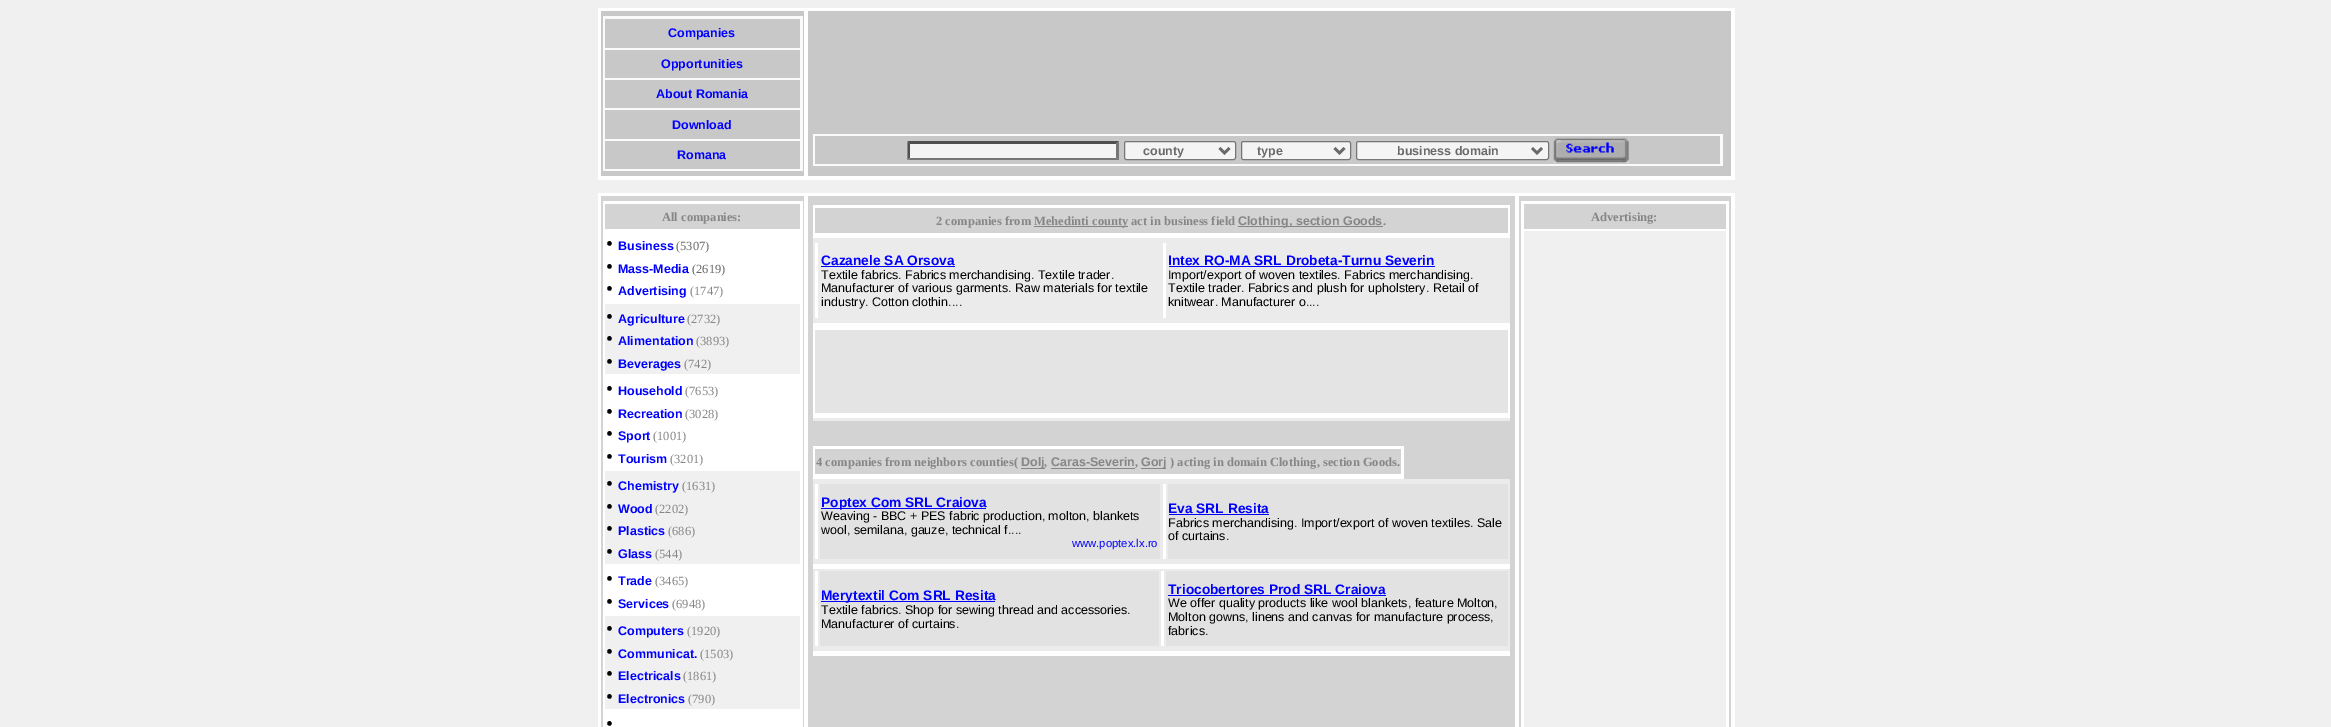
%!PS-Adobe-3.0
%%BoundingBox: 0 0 2331 727
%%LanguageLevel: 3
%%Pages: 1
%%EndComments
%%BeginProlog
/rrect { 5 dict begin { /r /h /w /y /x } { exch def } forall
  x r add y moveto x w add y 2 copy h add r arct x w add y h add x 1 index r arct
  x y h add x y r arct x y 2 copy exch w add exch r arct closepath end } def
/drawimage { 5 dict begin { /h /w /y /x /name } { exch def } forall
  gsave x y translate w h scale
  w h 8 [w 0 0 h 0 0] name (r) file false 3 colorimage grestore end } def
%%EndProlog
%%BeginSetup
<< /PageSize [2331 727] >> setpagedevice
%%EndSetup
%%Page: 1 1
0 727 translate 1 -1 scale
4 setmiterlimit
0.941 setgray
0 0 2331 727 rectfill
1 setgray
598 8 1137 172 rectfill
0.784 setgray
601 11 203 165 rectfill
0.98 setgray
603 16 200 155 rectfill
0.784 setgray
605 19 195 29 rectfill
605 50 195 28 rectfill
605 80 195 28 rectfill
605 110 195 29 rectfill
605 141 195 28 rectfill
808 11 923 165 rectfill
0.98 setgray
813 134 910 32 rectfill
0.784 setgray
815 136 905 28 rectfill
0.957 setgray
908 141 211 19 rectfill
0.31 setgray
newpath 908 141 moveto 1119 141 lineto 1116 144 lineto 910 144 lineto closepath fill
0.463 setgray
newpath 1119 141 moveto 1119 160 lineto 1116 157.5 lineto 1116 144 lineto closepath fill
newpath 1119 160 moveto 908 160 lineto 910 158 lineto 1116 158 lineto closepath fill
0.31 setgray
newpath 907.5 160 moveto 907.5 141 lineto 910 144 lineto 910 157.5 lineto closepath fill
0.957 setgray
1124.5 141.5 111 18 2 rrect gsave fill grestore
0.463 setgray
stroke
0.412 setgray
2.5 setlinewidth
newpath 1219.5 148 moveto 1224.5 153 lineto 1229.5 148 lineto stroke
0.957 setgray
1241.5 141.5 109 18 2 rrect gsave fill grestore
0.463 setgray
1 setlinewidth
stroke
0.412 setgray
2.5 setlinewidth
newpath 1334.5 148 moveto 1339.5 153 lineto 1344.5 148 lineto stroke
0.957 setgray
1356.5 141.5 192 18 2 rrect gsave fill grestore
0.463 setgray
1 setlinewidth
stroke
0.412 setgray
2.5 setlinewidth
newpath 1532 148 moveto 1537 153 lineto 1542 148 lineto stroke
0.957 setgray
1554 138 75 25 rectfill
(images/1.raw) 1553 137 76 26 drawimage
1 setgray
598 193 1137 534 rectfill
0.827 setgray
601 196 203 531 rectfill
1 setgray
603 201 200 526 rectfill
0.827 setgray
605 204 195 25 rectfill
0.941 setgray
605 304 195 70 rectfill
605 471 195 93 rectfill
605 616 195 93 rectfill
0.827 setgray
808 196 707 531 rectfill
1 setgray
813 205 697 33 rectfill
0.827 setgray
815 208 693 25 rectfill
0.525 setgray
1034 226 94 1 rectfill
1238 226 145 1 rectfill
0.922 setgray
813 238 697 85 rectfill
1 setgray
815 243 3 75 rectfill
0 0 1 setrgbcolor
821 266 134 1 rectfill
1 setgray
1163 243 3 75 rectfill
0 0 1 setrgbcolor
1169 266 266 1 rectfill
1 setgray
813 323 697 95 rectfill
0.894 setgray
815 330 693 83 rectfill
0.922 setgray
813 418 697 3 rectfill
1 setgray
813 446 591 33 rectfill
0.827 setgray
815 449 586 25 rectfill
0.525 setgray
1021 468 24 1 rectfill
1051 468 84 1 rectfill
1141 468 25 1 rectfill
0.922 setgray
813 479 697 85 rectfill
1 setgray
815 484 3 75 rectfill
0.886 setgray
820 484 340 75 rectfill
0 0 1 setrgbcolor
821 508 165 1 rectfill
1 setgray
1163 484 3 75 rectfill
0.886 setgray
1168 484 340 75 rectfill
0 0 1 setrgbcolor
1169 514 100 1 rectfill
1 setgray
813 564 697 5 rectfill
0.922 setgray
813 569 697 82 rectfill
1 setgray
815 571 3 75 rectfill
0.886 setgray
820 571 339 75 rectfill
0 0 1 setrgbcolor
821 601 174 1 rectfill
1 setgray
1161 571 3 75 rectfill
0.886 setgray
1166 571 342 75 rectfill
0 0 1 setrgbcolor
1168 595 218 1 rectfill
1 setgray
813 651 697 5 rectfill
0.827 setgray
1519 196 212 531 rectfill
1 setgray
1521 201 208 526 rectfill
0.827 setgray
1524 204 202 25 rectfill
0.941 setgray
1524 231 202 496 rectfill
/LiberationSans-Bold [12.5 0 0 -12.5 0 0] selectfont
0 0 1 setrgbcolor
668 37 moveto (Companies) show
661 68 moveto (Opportunities) show
656 98 moveto (About Romania) show
672 129 moveto (Download) show
677 159 moveto (Romana) show
0.412 setgray
1143 155 moveto (county) show
1257 155 moveto (type) show
1397 155 moveto (business domain) show
/LiberationSerif-Bold [12.5 0 0 -12.5 0 0] selectfont
0.525 setgray
662 221 moveto (All companies:) show
/LiberationSerif-Regular [20 0 0 -20 0 0] selectfont
0 setgray
606 250 moveto (•) show
/LiberationSans-Bold [12.5 0 0 -12.5 0 0] selectfont
0 0 1 setrgbcolor
618 250 moveto (Business) show
/LiberationSerif-Regular [12.5 0 0 -12.5 0 0] selectfont
0.412 setgray
676 250 moveto (\(5307\)) show
/LiberationSerif-Regular [20 0 0 -20 0 0] selectfont
0 setgray
606 273 moveto (•) show
/LiberationSans-Bold [12.5 0 0 -12.5 0 0] selectfont
0 0 1 setrgbcolor
618 273 moveto (Mass-Media) show
/LiberationSerif-Regular [12.5 0 0 -12.5 0 0] selectfont
0.412 setgray
692 273 moveto (\(2619\)) show
/LiberationSerif-Regular [20 0 0 -20 0 0] selectfont
0 setgray
606 295 moveto (•) show
/LiberationSans-Bold [12.5 0 0 -12.5 0 0] selectfont
0 0 1 setrgbcolor
618 295 moveto (Advertising) show
/LiberationSerif-Regular [12.5 0 0 -12.5 0 0] selectfont
0.525 setgray
690 295 moveto (\(1747\)) show
/LiberationSerif-Regular [20 0 0 -20 0 0] selectfont
0 setgray
606 323 moveto (•) show
/LiberationSans-Bold [12.5 0 0 -12.5 0 0] selectfont
0 0 1 setrgbcolor
618 323 moveto (Agriculture) show
/LiberationSerif-Regular [12.5 0 0 -12.5 0 0] selectfont
0.525 setgray
687 323 moveto (\(2732\)) show
/LiberationSerif-Regular [20 0 0 -20 0 0] selectfont
0 setgray
606 345 moveto (•) show
/LiberationSans-Bold [12.5 0 0 -12.5 0 0] selectfont
0 0 1 setrgbcolor
618 345 moveto (Alimentation) show
/LiberationSerif-Regular [12.5 0 0 -12.5 0 0] selectfont
0.525 setgray
696 345 moveto (\(3893\)) show
/LiberationSerif-Regular [20 0 0 -20 0 0] selectfont
0 setgray
606 368 moveto (•) show
/LiberationSans-Bold [12.5 0 0 -12.5 0 0] selectfont
0 0 1 setrgbcolor
618 368 moveto (Beverages) show
/LiberationSerif-Regular [12.5 0 0 -12.5 0 0] selectfont
0.525 setgray
684 368 moveto (\(742\)) show
/LiberationSerif-Regular [20 0 0 -20 0 0] selectfont
0 setgray
606 395 moveto (•) show
/LiberationSans-Bold [12.5 0 0 -12.5 0 0] selectfont
0 0 1 setrgbcolor
618 395 moveto (Household) show
/LiberationSerif-Regular [12.5 0 0 -12.5 0 0] selectfont
0.525 setgray
685 395 moveto (\(7653\)) show
/LiberationSerif-Regular [20 0 0 -20 0 0] selectfont
0 setgray
606 418 moveto (•) show
/LiberationSans-Bold [12.5 0 0 -12.5 0 0] selectfont
0 0 1 setrgbcolor
618 418 moveto (Recreation) show
/LiberationSerif-Regular [12.5 0 0 -12.5 0 0] selectfont
0.525 setgray
685 418 moveto (\(3028\)) show
/LiberationSerif-Regular [20 0 0 -20 0 0] selectfont
0 setgray
606 440 moveto (•) show
/LiberationSans-Bold [12.5 0 0 -12.5 0 0] selectfont
0 0 1 setrgbcolor
618 440 moveto (Sport) show
/LiberationSerif-Regular [12.5 0 0 -12.5 0 0] selectfont
0.525 setgray
653 440 moveto (\(1001\)) show
/LiberationSerif-Regular [20 0 0 -20 0 0] selectfont
0 setgray
606 463 moveto (•) show
/LiberationSans-Bold [12.5 0 0 -12.5 0 0] selectfont
0 0 1 setrgbcolor
618 463 moveto (Tourism) show
/LiberationSerif-Regular [12.5 0 0 -12.5 0 0] selectfont
0.525 setgray
670 463 moveto (\(3201\)) show
/LiberationSerif-Regular [20 0 0 -20 0 0] selectfont
0 setgray
606 490 moveto (•) show
/LiberationSans-Bold [12.5 0 0 -12.5 0 0] selectfont
0 0 1 setrgbcolor
618 490 moveto (Chemistry) show
/LiberationSerif-Regular [12.5 0 0 -12.5 0 0] selectfont
0.525 setgray
682 490 moveto (\(1631\)) show
/LiberationSerif-Regular [20 0 0 -20 0 0] selectfont
0 setgray
606 513 moveto (•) show
/LiberationSans-Bold [12.5 0 0 -12.5 0 0] selectfont
0 0 1 setrgbcolor
618 513 moveto (Wood) show
/LiberationSerif-Regular [12.5 0 0 -12.5 0 0] selectfont
0.525 setgray
655 513 moveto (\(2202\)) show
/LiberationSerif-Regular [20 0 0 -20 0 0] selectfont
0 setgray
606 535 moveto (•) show
/LiberationSans-Bold [12.5 0 0 -12.5 0 0] selectfont
0 0 1 setrgbcolor
618 535 moveto (Plastics) show
/LiberationSerif-Regular [12.5 0 0 -12.5 0 0] selectfont
0.525 setgray
668 535 moveto (\(686\)) show
/LiberationSerif-Regular [20 0 0 -20 0 0] selectfont
0 setgray
606 558 moveto (•) show
/LiberationSans-Bold [12.5 0 0 -12.5 0 0] selectfont
0 0 1 setrgbcolor
618 558 moveto (Glass) show
/LiberationSerif-Regular [12.5 0 0 -12.5 0 0] selectfont
0.525 setgray
655 558 moveto (\(544\)) show
/LiberationSerif-Regular [20 0 0 -20 0 0] selectfont
0 setgray
606 585 moveto (•) show
/LiberationSans-Bold [12.5 0 0 -12.5 0 0] selectfont
0 0 1 setrgbcolor
618 585 moveto (Trade) show
/LiberationSerif-Regular [12.5 0 0 -12.5 0 0] selectfont
0.525 setgray
655 585 moveto (\(3465\)) show
/LiberationSerif-Regular [20 0 0 -20 0 0] selectfont
0 setgray
606 608 moveto (•) show
/LiberationSans-Bold [12.5 0 0 -12.5 0 0] selectfont
0 0 1 setrgbcolor
618 608 moveto (Services) show
/LiberationSerif-Regular [12.5 0 0 -12.5 0 0] selectfont
0.525 setgray
672 608 moveto (\(6948\)) show
/LiberationSerif-Regular [20 0 0 -20 0 0] selectfont
0 setgray
606 635 moveto (•) show
/LiberationSans-Bold [12.5 0 0 -12.5 0 0] selectfont
0 0 1 setrgbcolor
618 635 moveto (Computers) show
/LiberationSerif-Regular [12.5 0 0 -12.5 0 0] selectfont
0.525 setgray
687 635 moveto (\(1920\)) show
/LiberationSerif-Regular [20 0 0 -20 0 0] selectfont
0 setgray
606 658 moveto (•) show
/LiberationSans-Bold [12.5 0 0 -12.5 0 0] selectfont
0 0 1 setrgbcolor
618 658 moveto (Communicat.) show
/LiberationSerif-Regular [12.5 0 0 -12.5 0 0] selectfont
0.525 setgray
700 658 moveto (\(1503\)) show
/LiberationSerif-Regular [20 0 0 -20 0 0] selectfont
0 setgray
606 680 moveto (•) show
/LiberationSans-Bold [12.5 0 0 -12.5 0 0] selectfont
0 0 1 setrgbcolor
618 680 moveto (Electricals) show
/LiberationSerif-Regular [12.5 0 0 -12.5 0 0] selectfont
0.525 setgray
683 680 moveto (\(1861\)) show
/LiberationSerif-Regular [20 0 0 -20 0 0] selectfont
0 setgray
606 703 moveto (•) show
/LiberationSans-Bold [12.5 0 0 -12.5 0 0] selectfont
0 0 1 setrgbcolor
618 703 moveto (Electronics) show
/LiberationSerif-Regular [12.5 0 0 -12.5 0 0] selectfont
0.525 setgray
688 703 moveto (\(790\)) show
/LiberationSerif-Regular [20 0 0 -20 0 0] selectfont
0 setgray
606 730 moveto (•) show
/LiberationSerif-Bold [12.5 0 0 -12.5 0 0] selectfont
0.525 setgray
936 225 moveto (2 companies from) show
1034 225 moveto (Mehedinti county act in business field) show
/LiberationSans-Bold [12.5 0 0 -12.5 0 0] selectfont
1238 225 moveto (Clothing, section Goods) show
/LiberationSerif-Bold [12.5 0 0 -12.5 0 0] selectfont
1383 225 moveto (.) show
/LiberationSans-Bold [13.75 0 0 -13.75 0 0] selectfont
0 0 1 setrgbcolor
821 265 moveto (Cazanele SA Orsova) show
/LiberationSans-Regular [12.5 0 0 -12.5 0 0] selectfont
0 setgray
821 279 moveto (Textile fabrics. Fabrics merchandising. Textile trader.) show
821 292 moveto (Manufacturer of various garments. Raw materials for textile) show
821 306 moveto (industry. Cotton clothin....) show
/LiberationSans-Bold [13.75 0 0 -13.75 0 0] selectfont
0 0 1 setrgbcolor
1168 265 moveto (Intex RO-MA SRL Drobeta-Turnu Severin) show
/LiberationSans-Regular [12.5 0 0 -12.5 0 0] selectfont
0 setgray
1168 279 moveto (Import/export of woven textiles. Fabrics merchandising.) show
1168 292 moveto (Textile trader. Fabrics and plush for upholstery. Retail of) show
1168 306 moveto (knitwear. Manufacturer o....) show
/LiberationSerif-Bold [12.5 0 0 -12.5 0 0] selectfont
0.525 setgray
816 466 moveto (4 companies from neighbors counties\() show
/LiberationSans-Bold [12.5 0 0 -12.5 0 0] selectfont
1021 466 moveto (Dolj) show
/LiberationSerif-Bold [12.5 0 0 -12.5 0 0] selectfont
1044 466 moveto (,) show
/LiberationSans-Bold [12.5 0 0 -12.5 0 0] selectfont
1051 466 moveto (Caras-Severin) show
/LiberationSerif-Bold [12.5 0 0 -12.5 0 0] selectfont
1135 466 moveto (,) show
/LiberationSans-Bold [12.5 0 0 -12.5 0 0] selectfont
1141 466 moveto (Gorj) show
/LiberationSerif-Bold [12.5 0 0 -12.5 0 0] selectfont
1170 466 moveto (\) acting in domain Clothing, section Goods.) show
/LiberationSans-Bold [13.75 0 0 -13.75 0 0] selectfont
0 0 1 setrgbcolor
821 507 moveto (Poptex Com SRL Craiova) show
/LiberationSans-Regular [12.5 0 0 -12.5 0 0] selectfont
0 setgray
821 520 moveto (Weaving - BBC + PES fabric production, molton, blankets) show
821 534 moveto (wool, semilana, gauze, technical f....) show
/LiberationSans-Regular [11.25 0 0 -11.25 0 0] selectfont
0 0 1 setrgbcolor
1072 547 moveto (www.poptex.lx.ro) show
/LiberationSans-Bold [13.75 0 0 -13.75 0 0] selectfont
1168 513 moveto (Eva SRL Resita) show
/LiberationSans-Regular [12.5 0 0 -12.5 0 0] selectfont
0 setgray
1168 527 moveto (Fabrics merchandising. Import/export of woven textiles. Sale) show
1168 540 moveto (of curtains.) show
/LiberationSans-Bold [13.75 0 0 -13.75 0 0] selectfont
0 0 1 setrgbcolor
821 600 moveto (Merytextil Com SRL Resita) show
/LiberationSans-Regular [12.5 0 0 -12.5 0 0] selectfont
0 setgray
821 614 moveto (Textile fabrics. Shop for sewing thread and accessories.) show
821 628 moveto (Manufacturer of curtains.) show
/LiberationSans-Bold [13.75 0 0 -13.75 0 0] selectfont
0 0 1 setrgbcolor
1168 594 moveto (Triocobertores Prod SRL Craiova) show
/LiberationSans-Regular [12.5 0 0 -12.5 0 0] selectfont
0 setgray
1168 607 moveto (We offer quality products like wool blankets, feature Molton,) show
1168 621 moveto (Molton gowns, linens and canvas for manufacture process,) show
1168 635 moveto (fabrics.) show
/LiberationSerif-Bold [12.5 0 0 -12.5 0 0] selectfont
0.525 setgray
1591 221 moveto (Advertising:) show
showpage
%%EOF
